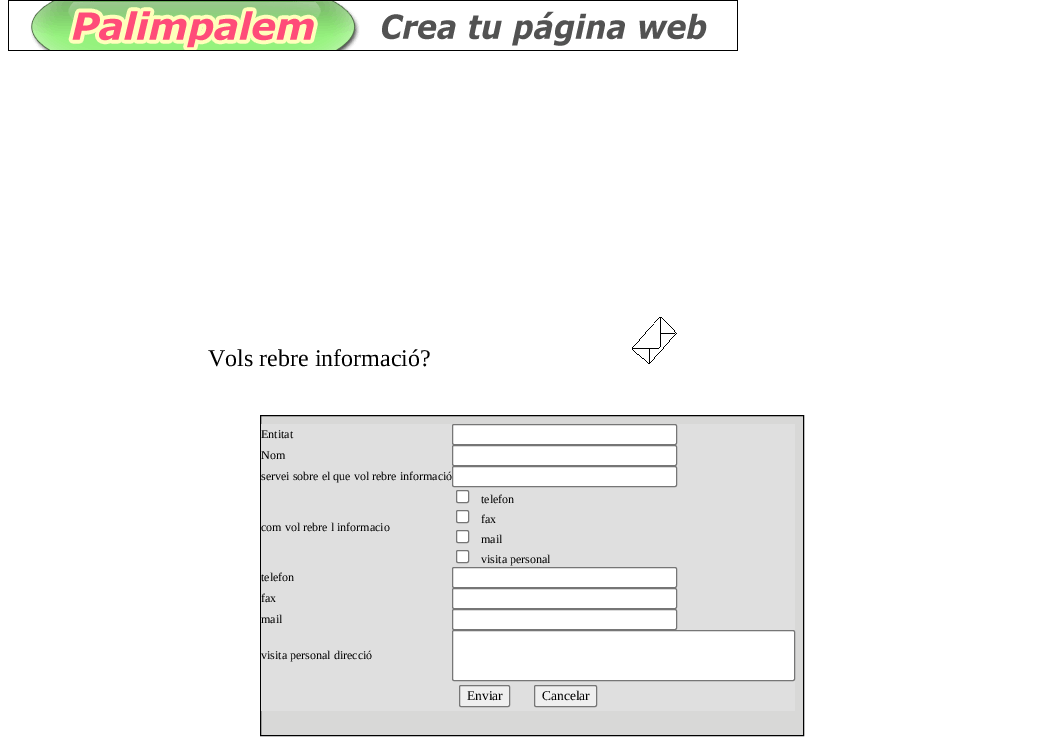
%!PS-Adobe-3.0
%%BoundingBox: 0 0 1064 737
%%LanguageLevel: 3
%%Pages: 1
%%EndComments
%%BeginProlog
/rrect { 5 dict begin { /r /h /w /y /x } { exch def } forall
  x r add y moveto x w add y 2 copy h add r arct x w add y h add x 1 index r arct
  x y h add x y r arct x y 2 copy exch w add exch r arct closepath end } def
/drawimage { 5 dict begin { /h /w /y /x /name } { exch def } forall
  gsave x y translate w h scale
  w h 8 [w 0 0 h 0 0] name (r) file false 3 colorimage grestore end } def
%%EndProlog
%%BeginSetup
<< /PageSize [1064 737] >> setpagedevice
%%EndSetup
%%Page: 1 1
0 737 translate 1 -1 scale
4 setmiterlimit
1 setgray
0 0 1064 737 rectfill
(images/1.raw) 8 0 730 51 drawimage
(images/2.raw) 632 317 45 47 drawimage
0.847 0.847 0.843 setrgbcolor
newpath 260.5 415.5 moveto 803.5 415.5 lineto 803.5 735.5 lineto 260.5 735.5 lineto closepath gsave fill grestore
0 setgray
stroke
0.875 setgray
261 424 534 287 rectfill
1 setgray
452.5 424.5 224 20 1.5 rrect gsave fill grestore
0.463 setgray
stroke
1 setgray
452.5 445.5 224 20 1.5 rrect gsave fill grestore
0.463 setgray
stroke
1 setgray
452.5 466.5 224 20 1.5 rrect gsave fill grestore
0.463 setgray
stroke
1 setgray
456.5 490.5 12 12 1.5 rrect gsave fill grestore
0.463 setgray
stroke
1 setgray
456.5 510.5 12 12 1.5 rrect gsave fill grestore
0.463 setgray
stroke
1 setgray
456.5 530.5 12 12 1.5 rrect gsave fill grestore
0.463 setgray
stroke
1 setgray
456.5 550.5 12 12 1.5 rrect gsave fill grestore
0.463 setgray
stroke
1 setgray
452.5 567.5 224 20 1.5 rrect gsave fill grestore
0.463 setgray
stroke
1 setgray
452.5 588.5 224 20 1.5 rrect gsave fill grestore
0.463 setgray
stroke
1 setgray
452.5 609.5 224 20 1.5 rrect gsave fill grestore
0.463 setgray
stroke
1 setgray
452.5 630.5 342 50 1.5 rrect gsave fill grestore
0.463 setgray
stroke
0.937 setgray
459.5 685.5 50 21 1.5 rrect gsave fill grestore
0.463 setgray
stroke
0.937 setgray
534.5 685.5 62 21 1.5 rrect gsave fill grestore
0.463 setgray
stroke
/LiberationSerif-Regular [24 0 0 -24 0 0] selectfont
0 setgray
208 366 moveto (Vols rebre informació?) show
/LiberationSerif-Regular [12 0 0 -12 0 0] selectfont
261 438 moveto (Entitat) show
261 459 moveto (Nom) show
261 480 moveto (servei sobre el que vol rebre informació) show
261 531 moveto (com vol rebre l informacio) show
481 503 moveto (telefon) show
481 523 moveto (fax) show
481 543 moveto (mail) show
481 563 moveto (visita personal) show
261 581 moveto (telefon) show
261 602 moveto (fax) show
261 623 moveto (mail) show
261 659 moveto (visita personal direcció) show
/LiberationSerif-Regular [13.5 0 0 -13.5 0 0] selectfont
467 700 moveto (Enviar) show
542 700 moveto (Cancelar) show
showpage
%%EOF
